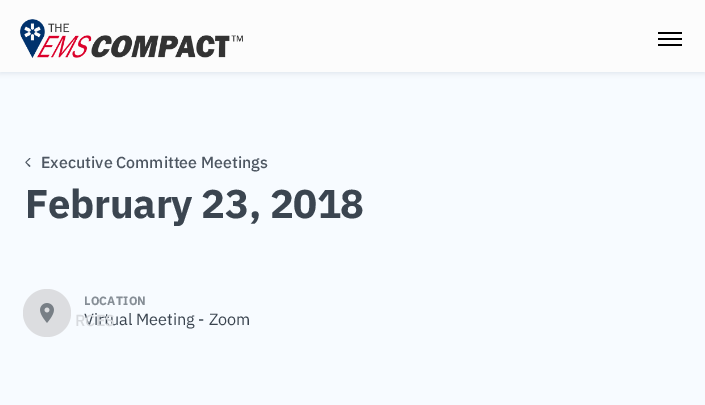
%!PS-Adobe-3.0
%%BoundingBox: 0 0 705 405
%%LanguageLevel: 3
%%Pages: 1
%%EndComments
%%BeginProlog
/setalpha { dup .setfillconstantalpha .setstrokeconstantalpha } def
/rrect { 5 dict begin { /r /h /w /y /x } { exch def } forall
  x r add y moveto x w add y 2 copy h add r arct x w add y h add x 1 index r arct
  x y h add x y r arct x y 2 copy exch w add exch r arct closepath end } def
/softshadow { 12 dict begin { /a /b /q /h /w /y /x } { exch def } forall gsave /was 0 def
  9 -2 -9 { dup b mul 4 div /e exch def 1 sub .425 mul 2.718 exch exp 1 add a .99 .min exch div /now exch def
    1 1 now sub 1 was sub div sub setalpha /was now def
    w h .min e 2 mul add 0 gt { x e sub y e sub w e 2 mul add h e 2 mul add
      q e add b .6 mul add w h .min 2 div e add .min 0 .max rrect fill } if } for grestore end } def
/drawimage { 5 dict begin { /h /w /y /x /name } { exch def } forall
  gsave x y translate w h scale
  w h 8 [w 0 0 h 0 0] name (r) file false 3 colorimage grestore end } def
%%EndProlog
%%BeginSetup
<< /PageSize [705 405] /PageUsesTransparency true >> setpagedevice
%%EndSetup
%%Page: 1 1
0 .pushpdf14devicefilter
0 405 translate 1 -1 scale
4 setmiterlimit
0.969 0.984 1 setrgbcolor
0 0 705 405 rectfill
0.306 0.341 0.384 setrgbcolor
newpath 26 162 moveto 30.5 166 lineto 29.5 167 lineto 25.5 162.5 lineto closepath fill
newpath 29.5 158 moveto 30.5 158.5 lineto 26 162.5 lineto 25.5 162 lineto closepath fill
0.863 0.867 0.878 setrgbcolor
newpath 47 313 24 0 360 arc closepath fill
(images/1.raw) 40 303 14 20 drawimage
0 0.11 0.22 setrgbcolor
0 2 705 72 0 2 0.07 softshadow
0.988 setgray
0 0 705 72 rectfill
(images/2.raw) 20 19 223 39 drawimage
0 setgray
658 38 24 2 rectfill
658 32 24 2 rectfill
658 44 24 2 rectfill
/IBMPlexSans-Medium [16 0 0 -16 0 0] selectfont
0.306 0.341 0.384 setrgbcolor
41 168 moveto (Executive Committee Meetings) show
/IBMPlexSans-Bold [40 0 0 -40 0 0] selectfont
0.231 0.271 0.314 setrgbcolor
25 218 moveto -0.4 0 (February 23, 2018) ashow
/IBMPlexSans-Bold [12 0 0 -12 0 0] selectfont
0.525 0.557 0.588 setrgbcolor
84 305 moveto 0.25 0 (LOCATION) ashow
/IBMPlexSans-Regular [16.25 0 0 -16.25 0 0] selectfont
0.231 0.271 0.314 setrgbcolor
84 325 moveto (Virtual Meeting - Zoom) show
/IBMPlexSans-Medium [16 0 0 -16 0 0] selectfont
0.843 0.855 0.871 setrgbcolor
75 326 moveto (RCES) show
.poppdf14devicefilter showpage
%%EOF
